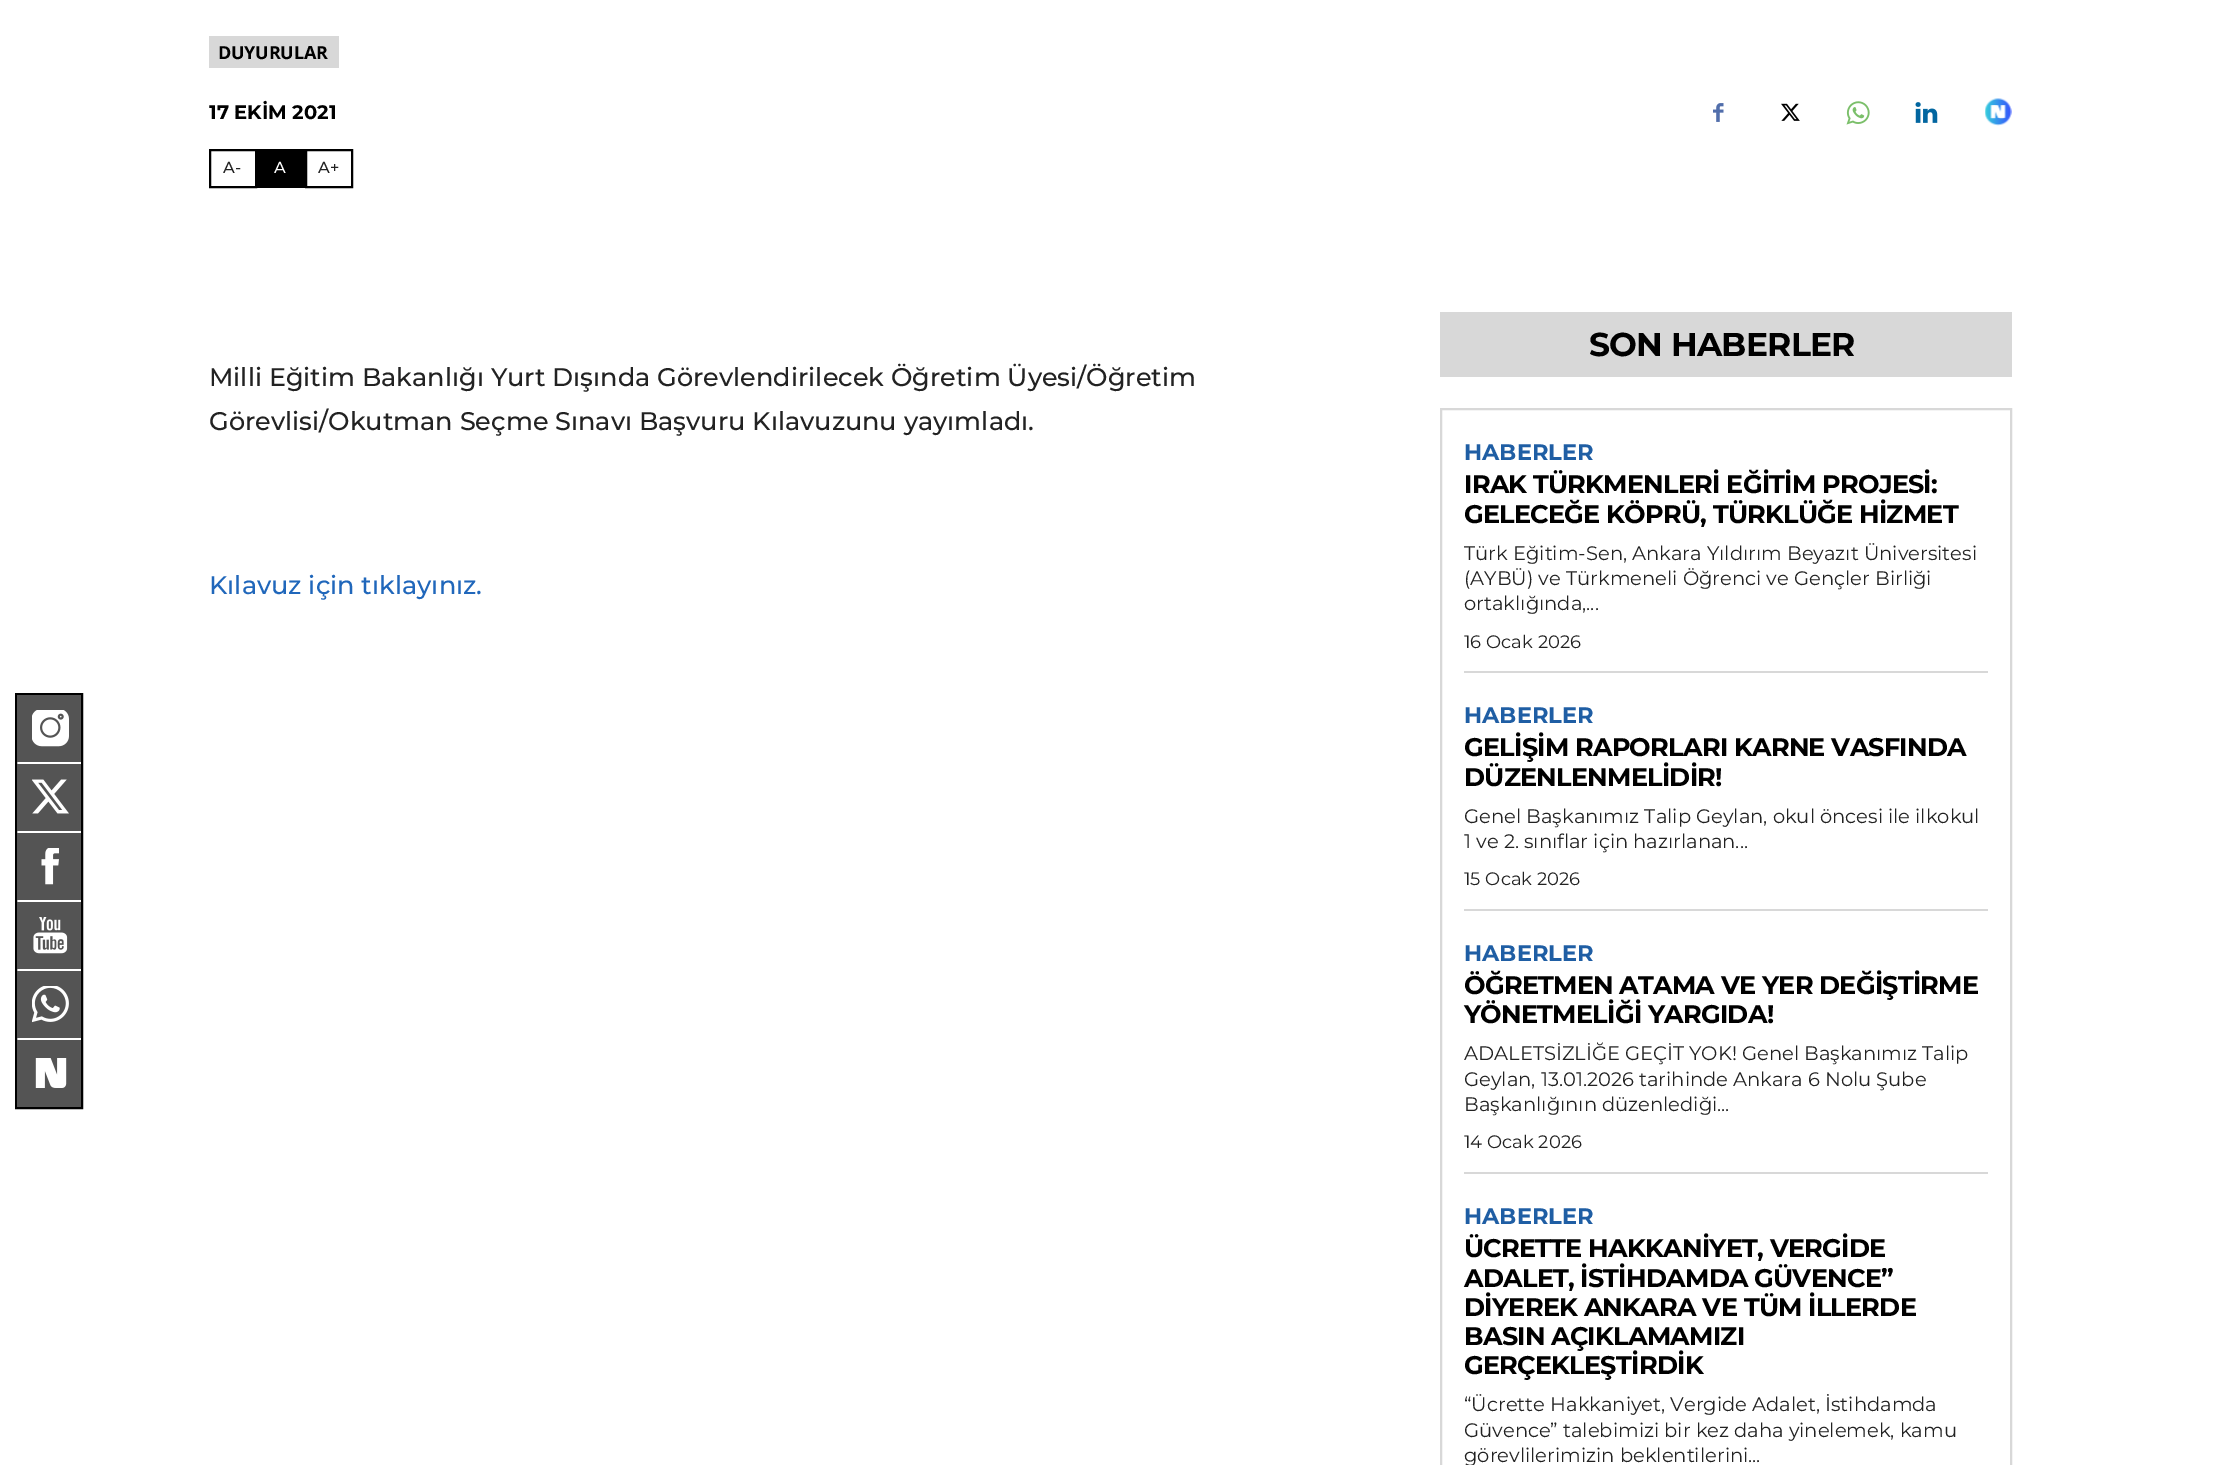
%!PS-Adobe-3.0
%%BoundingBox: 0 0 2220 1465
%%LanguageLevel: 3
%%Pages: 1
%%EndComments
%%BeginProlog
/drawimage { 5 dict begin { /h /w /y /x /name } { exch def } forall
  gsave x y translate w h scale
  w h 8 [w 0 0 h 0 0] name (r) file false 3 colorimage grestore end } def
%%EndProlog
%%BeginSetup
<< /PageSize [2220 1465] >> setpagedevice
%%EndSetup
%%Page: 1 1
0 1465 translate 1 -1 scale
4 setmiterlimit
1 setgray
0 0 2220 1465 rectfill
0 setgray
2 setlinewidth
16 694 66 414 rectstroke
0.329 setgray
17 695 64 67 rectfill
(images/1.raw) 32 710 37 37 drawimage
17 764 64 67 rectfill
(images/2.raw) 32 779 37 35 drawimage
17 833 64 67 rectfill
(images/3.raw) 41 848 18 37 drawimage
17 902 64 67 rectfill
(images/4.raw) 33 917 35 37 drawimage
17 971 64 67 rectfill
(images/5.raw) 32 986 37 37 drawimage
17 1040 64 67 rectfill
(images/6.raw) 35 1058 32 30 drawimage
0.847 setgray
209 36 130 32 rectfill
(images/7.raw) 1713 103 11 19 drawimage
(images/8.raw) 1781 103 19 18 drawimage
(images/9.raw) 1846 101 24 24 drawimage
(images/10.raw) 1915 102 23 21 drawimage
(images/11.raw) 1985 98 27 28 drawimage
0 setgray
210 150 46 37 rectstroke
257 149 48 39 rectfill
306 150 46 37 rectstroke
0.847 setgray
1440 312 572 65 rectfill
1441 409 570 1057 rectstroke
1464 671 524 2 rectfill
1464 909 524 2 rectfill
1464 1172 524 2 rectfill
/OpenSans-Bold [18 0 0 -18 0 0] selectfont
0 setgray
218 59 moveto -0.25 0 (DUYURULAR) ashow
/Montserrat-Bold [19.5 0 0 -19.5 0 0] selectfont
209 119 moveto (17 EKİM 2021) show
/Montserrat-Medium [16 0 0 -16 0 0] selectfont
0.133 setgray
223 173 moveto (A-) show
1 setgray
274 173 moveto (A) show
0.133 setgray
318 173 moveto (A+) show
/Montserrat-Medium [25.5 0 0 -25.5 0 0] selectfont
209 386 moveto (Milli Eğitim Bakanlığı Yurt Dışında Görevlendirilecek Öğretim Üyesi/Öğretim) show
209 430 moveto (Görevlisi/Okutman Seçme Sınavı Başvuru Kılavuzunu yayımladı.) show
0.125 0.404 0.733 setrgbcolor
209 594 moveto (Kılavuz için tıklayınız.) show
/Montserrat-Bold [33 0 0 -33 0 0] selectfont
0 setgray
1589 356 moveto -0.75 0 (SON HABERLER) ashow
/Montserrat-Bold [22.5 0 0 -22.5 0 0] selectfont
0.122 0.369 0.643 setrgbcolor
1464 460 moveto (HABERLER) show
/Montserrat-Bold [25.5 0 0 -25.5 0 0] selectfont
0 setgray
1464 493 moveto -0.75 0 (IRAK TÜRKMENLERİ EĞİTİM PROJESİ:) ashow
1464 523 moveto -0.75 0 (GELECEĞE KÖPRÜ, TÜRKLÜĞE HİZMET) ashow
/Montserrat-Regular [19.5 0 0 -19.5 0 0] selectfont
0.133 setgray
1464 560 moveto (Türk Eğitim-Sen, Ankara Yıldırım Beyazıt Üniversitesi) show
1464 585 moveto (\(AYBÜ\) ve Türkmeneli Öğrenci ve Gençler Birliği) show
1464 610 moveto (ortaklığında,...) show
/Montserrat-Regular [18 0 0 -18 0 0] selectfont
1464 648 moveto (16 Ocak 2026) show
/Montserrat-Bold [22.5 0 0 -22.5 0 0] selectfont
0.122 0.369 0.643 setrgbcolor
1464 723 moveto (HABERLER) show
/Montserrat-Bold [25.5 0 0 -25.5 0 0] selectfont
0 setgray
1464 756 moveto -0.75 0 (GELİŞİM RAPORLARI KARNE VASFINDA) ashow
1464 786 moveto -0.75 0 (DÜZENLENMELİDİR!) ashow
/Montserrat-Regular [19.5 0 0 -19.5 0 0] selectfont
0.133 setgray
1464 823 moveto (Genel Başkanımız Talip Geylan, okul öncesi ile ilkokul) show
1464 848 moveto (1 ve 2. sınıflar için hazırlanan...) show
/Montserrat-Regular [18 0 0 -18 0 0] selectfont
1464 885 moveto (15 Ocak 2026) show
/Montserrat-Bold [22.5 0 0 -22.5 0 0] selectfont
0.122 0.369 0.643 setrgbcolor
1464 961 moveto (HABERLER) show
/Montserrat-Bold [25.5 0 0 -25.5 0 0] selectfont
0 setgray
1464 994 moveto -0.75 0 (ÖĞRETMEN ATAMA VE YER DEĞİŞTİRME) ashow
1464 1023 moveto -0.75 0 (YÖNETMELİĞİ YARGIDA!) ashow
/Montserrat-Regular [19.5 0 0 -19.5 0 0] selectfont
0.133 setgray
1464 1060 moveto (ADALETSİZLİĞE GEÇİT YOK! Genel Başkanımız Talip) show
1464 1086 moveto (Geylan, 13.01.2026 tarihinde Ankara 6 Nolu Şube) show
1464 1111 moveto (Başkanlığının düzenlediği...) show
/Montserrat-Regular [18 0 0 -18 0 0] selectfont
1464 1148 moveto (14 Ocak 2026) show
/Montserrat-Bold [22.5 0 0 -22.5 0 0] selectfont
0.122 0.369 0.643 setrgbcolor
1464 1224 moveto (HABERLER) show
/Montserrat-Bold [25.5 0 0 -25.5 0 0] selectfont
0 setgray
1464 1257 moveto -0.75 0 (ÜCRETTE HAKKANİYET, VERGİDE) ashow
1464 1287 moveto -0.75 0 (ADALET, İSTİHDAMDA GÜVENCE”) ashow
1464 1316 moveto -0.75 0 (DİYEREK ANKARA VE TÜM İLLERDE) ashow
1464 1345 moveto -0.75 0 (BASIN AÇIKLAMAMIZI) ashow
1464 1374 moveto -0.75 0 (GERÇEKLEŞTİRDİK) ashow
/Montserrat-Regular [19.5 0 0 -19.5 0 0] selectfont
0.133 setgray
1464 1411 moveto (“Ücrette Hakkaniyet, Vergide Adalet, İstihdamda) show
1464 1437 moveto (Güvence” talebimizi bir kez daha yinelemek, kamu) show
1464 1462 moveto (görevlilerimizin beklentilerini...) show
showpage
%%EOF
